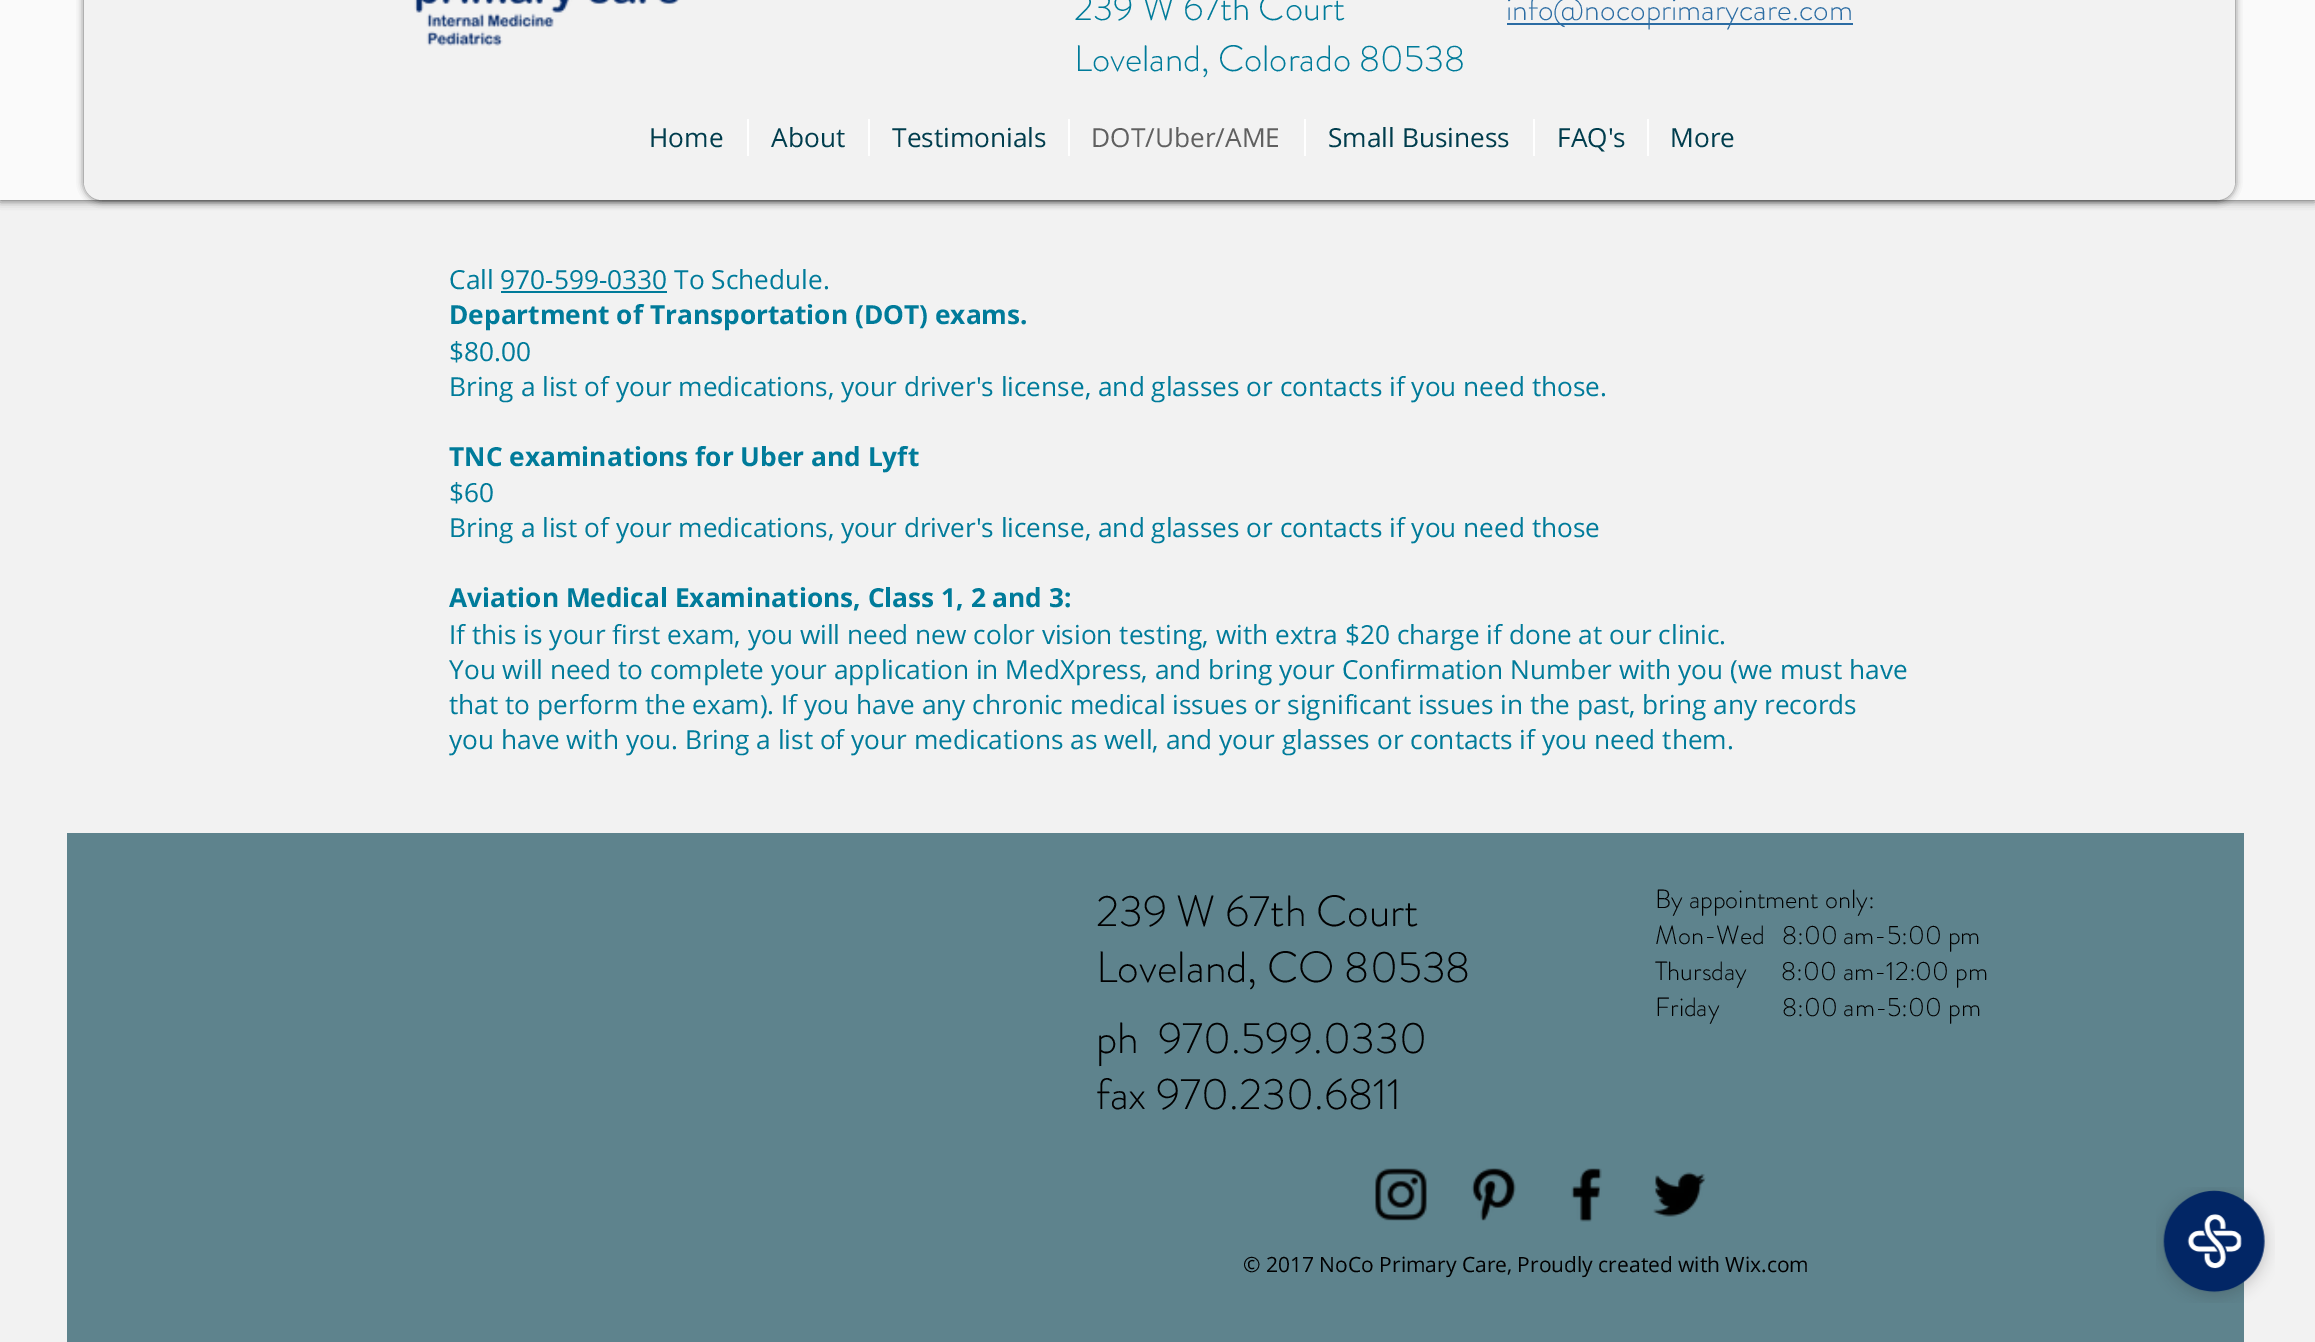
%!PS-Adobe-3.0
%%BoundingBox: 0 0 2315 1342
%%LanguageLevel: 3
%%Pages: 1
%%EndComments
%%BeginProlog
/setalpha { dup .setfillconstantalpha .setstrokeconstantalpha } def
/rrect { 5 dict begin { /r /h /w /y /x } { exch def } forall
  x r add y moveto x w add y 2 copy h add r arct x w add y h add x 1 index r arct
  x y h add x y r arct x y 2 copy exch w add exch r arct closepath end } def
/softshadow { 12 dict begin { /a /b /q /h /w /y /x } { exch def } forall gsave /was 0 def
  9 -2 -9 { dup b mul 4 div /e exch def 1 sub .425 mul 2.718 exch exp 1 add a .99 .min exch div /now exch def
    1 1 now sub 1 was sub div sub setalpha /was now def
    w h .min e 2 mul add 0 gt { x e sub y e sub w e 2 mul add h e 2 mul add
      q e add b .6 mul add w h .min 2 div e add .min 0 .max rrect fill } if } for grestore end } def
/drawimage { 5 dict begin { /h /w /y /x /name } { exch def } forall
  gsave x y translate w h scale
  w h 8 [w 0 0 h 0 0] name (r) file false 3 colorimage grestore end } def
%%EndProlog
%%BeginSetup
<< /PageSize [2315 1342] /PageUsesTransparency true >> setpagedevice
%%EndSetup
%%Page: 1 1
0 .pushpdf14devicefilter
0 1342 translate 1 -1 scale
4 setmiterlimit
0.949 setgray
0 0 2315 1342 rectfill
gsave
newpath 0 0 moveto 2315 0 lineto 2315 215 lineto 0 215 lineto closepath 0 -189 moveto 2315 -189 lineto 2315 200 lineto 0 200 lineto closepath eoclip newpath
0 setgray
0 -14 2315 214 0 4.5 0.7 softshadow
grestore
0.6 setalpha
1 setgray
0 0 2315 200 rectfill
1 setalpha
0 setgray
84 -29 2151 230 18 3.5 0.6 softshadow
0.949 setgray
84 -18 2151 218 18 rrect fill
(images/1.raw) 414 0 266 46 drawimage
0.169 0.424 0.639 setrgbcolor
1507 23 346 2 rectfill
1 setgray
747 119 2 37 rectfill
868 119 2 37 rectfill
1068 119 2 37 rectfill
1304 119 2 37 rectfill
1533 119 2 37 rectfill
1647 119 2 37 rectfill
0 0.482 0.604 setrgbcolor
501 291 166 2 rectfill
0.369 0.514 0.553 setrgbcolor
67 833 2177 509 rectfill
(images/2.raw) 1375 1168 52 53 drawimage
(images/3.raw) 1471 1168 45 53 drawimage
(images/4.raw) 1571 1168 31 54 drawimage
(images/5.raw) 1653 1172 53 45 drawimage
(images/6.raw) 2156 1187 119 116 drawimage
/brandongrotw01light-Light [36.75 0 0 -36.75 0 0] selectfont
0 0.482 0.604 setrgbcolor
1074 20 moveto (239 W 67th Court) show
1074 71 moveto (Loveland, Colorado 80538) show
/brandongrotw01light-Light [31.5 0 0 -31.5 0 0] selectfont
0.169 0.424 0.639 setrgbcolor
1506 20 moveto (info@nocoprimarycare.com) show
/OpenSans-Regular [26.25 0 0 -26.25 0 0] selectfont
0 0.239 0.302 setrgbcolor
649 147 moveto (Home) show
771 147 moveto (About) show
892 147 moveto (Testimonials) show
0.376 setgray
1091 147 moveto (DOT/Uber/AME) show
0 0.239 0.302 setrgbcolor
1328 147 moveto (Small Business) show
1557 147 moveto (FAQ's) show
1670 147 moveto (More) show
0 0.482 0.604 setrgbcolor
449 289 moveto (Call 970-599-0330 To Schedule.) show
/OpenSans-Bold [26.25 0 0 -26.25 0 0] selectfont
449 324 moveto (Department of Transportation \(DOT\) exams.) show
/OpenSans-Regular [26.25 0 0 -26.25 0 0] selectfont
449 361 moveto ($80.00) show
449 396 moveto (Bring a list of your medications, your driver's license, and glasses or contacts if you need those.) show
/OpenSans-Bold [26.25 0 0 -26.25 0 0] selectfont
449 466 moveto (TNC examinations for Uber and Lyft) show
/OpenSans-Regular [26.25 0 0 -26.25 0 0] selectfont
449 502 moveto ($60) show
449 537 moveto (Bring a list of your medications, your driver's license, and glasses or contacts if you need those) show
/OpenSans-Bold [26.25 0 0 -26.25 0 0] selectfont
449 607 moveto (Aviation Medical Examinations, Class 1, 2 and 3:) show
/OpenSans-Regular [26.25 0 0 -26.25 0 0] selectfont
449 644 moveto (If this is your first exam, you will need new color vision testing, with extra $20 charge if done at our clinic.) show
449 679 moveto (You will need to complete your application in MedXpress, and bring your Confirmation Number with you \(we must have) show
449 714 moveto (that to perform the exam\). If you have any chronic medical issues or significant issues in the past, bring any records) show
449 749 moveto (you have with you. Bring a list of your medications as well, and your glasses or contacts if you need them.) show
/brandongrotw01light-Light [43.75 0 0 -43.75 0 0] selectfont
0 setgray
1096 926 moveto (239 W 67th Court) show
1096 982 moveto (Loveland, CO 80538) show
/brandongrotw01light-Light [26.25 0 0 -26.25 0 0] selectfont
1655 908 moveto (By appointment only:) show
1655 944 moveto (Mon-Wed   8:00 am-5:00 pm) show
1655 980 moveto (Thursday      8:00 am-12:00 pm) show
1655 1016 moveto (Friday           8:00 am-5:00 pm) show
/brandongrotw01light-Light [43.75 0 0 -43.75 0 0] selectfont
1096 1053 moveto (ph  970.599.0330) show
1096 1109 moveto (fax 970.230.6811) show
/OpenSans-Regular [21 0 0 -21 0 0] selectfont
1243 1272 moveto (© 2017 NoCo Primary Care, Proudly created with Wix.com) show
.poppdf14devicefilter showpage
%%EOF
